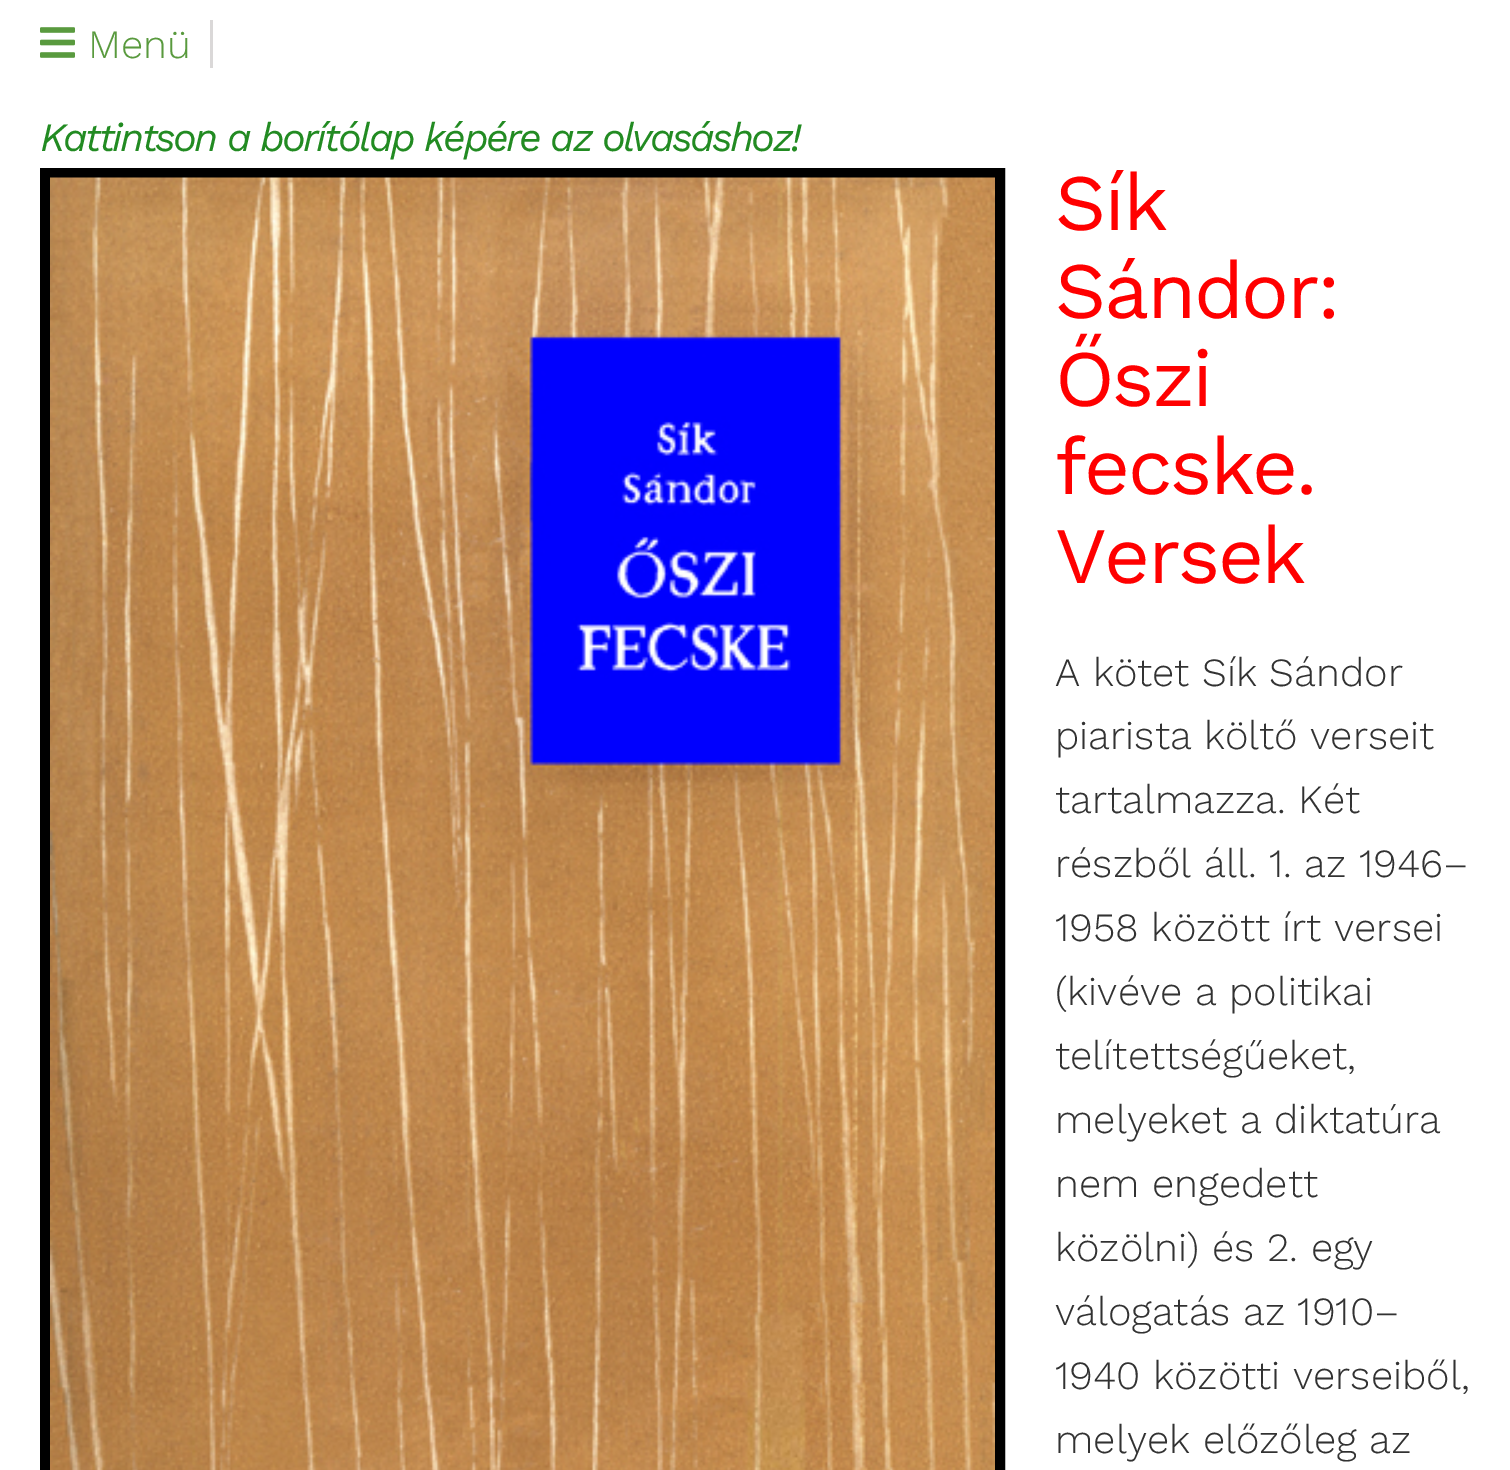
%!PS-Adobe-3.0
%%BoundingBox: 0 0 1510 1470
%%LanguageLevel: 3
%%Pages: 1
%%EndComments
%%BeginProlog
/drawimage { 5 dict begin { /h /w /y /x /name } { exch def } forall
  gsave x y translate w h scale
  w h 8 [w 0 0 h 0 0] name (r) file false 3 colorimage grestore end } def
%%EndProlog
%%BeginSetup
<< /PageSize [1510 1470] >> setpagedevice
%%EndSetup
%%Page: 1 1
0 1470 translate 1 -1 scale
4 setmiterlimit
1 setgray
0 0 1510 1470 rectfill
0.855 0.847 0.847 setrgbcolor
210 20 3 48 rectfill
(images/1.raw) 40 27 35 31 drawimage
0 setgray
10 setlinewidth
45 173 955 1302 rectstroke
(images/2.raw) 50 177 945 1293 drawimage
/WorkSans-Light [40 0 0 -40 0 0] selectfont
0.349 0.604 0.243 setrgbcolor
88 58 moveto (Menü) show
/WorkSans-Italic [40 0 0 -40 0 0] selectfont
0.133 0.545 0.133 setrgbcolor
40 151 moveto -2.5 0 (Kattintson a borítólap képére az olvasáshoz!) ashow
/WorkSans-Regular [80 0 0 -80 0 0] selectfont
1 0 0 setrgbcolor
1055 230 moveto -2.5 0 (Sík) ashow
1055 318 moveto -2.5 0 (Sándor:) ashow
1055 406 moveto -2.5 0 (Őszi) ashow
1055 494 moveto -2.5 0 (fecske.) ashow
1055 583 moveto -2.5 0 (Versek) ashow
/WorkSans-Light [40 0 0 -40 0 0] selectfont
0.196 setgray
1055 686 moveto (A kötet Sík Sándor) show
1055 749 moveto (piarista költő verseit) show
1055 813 moveto (tartalmazza. Két) show
1055 877 moveto (részből áll. 1. az 1946–) show
1055 941 moveto (1958 között írt versei) show
1055 1005 moveto (\(kivéve a politikai) show
1055 1069 moveto (telítettségűeket,) show
1055 1133 moveto (melyeket a diktatúra) show
1055 1197 moveto (nem engedett) show
1055 1261 moveto (közölni\) és 2. egy) show
1055 1325 moveto (válogatás az 1910–) show
1055 1389 moveto (1940 közötti verseiből,) show
1055 1453 moveto (melyek előzőleg az) show
showpage
%%EOF
